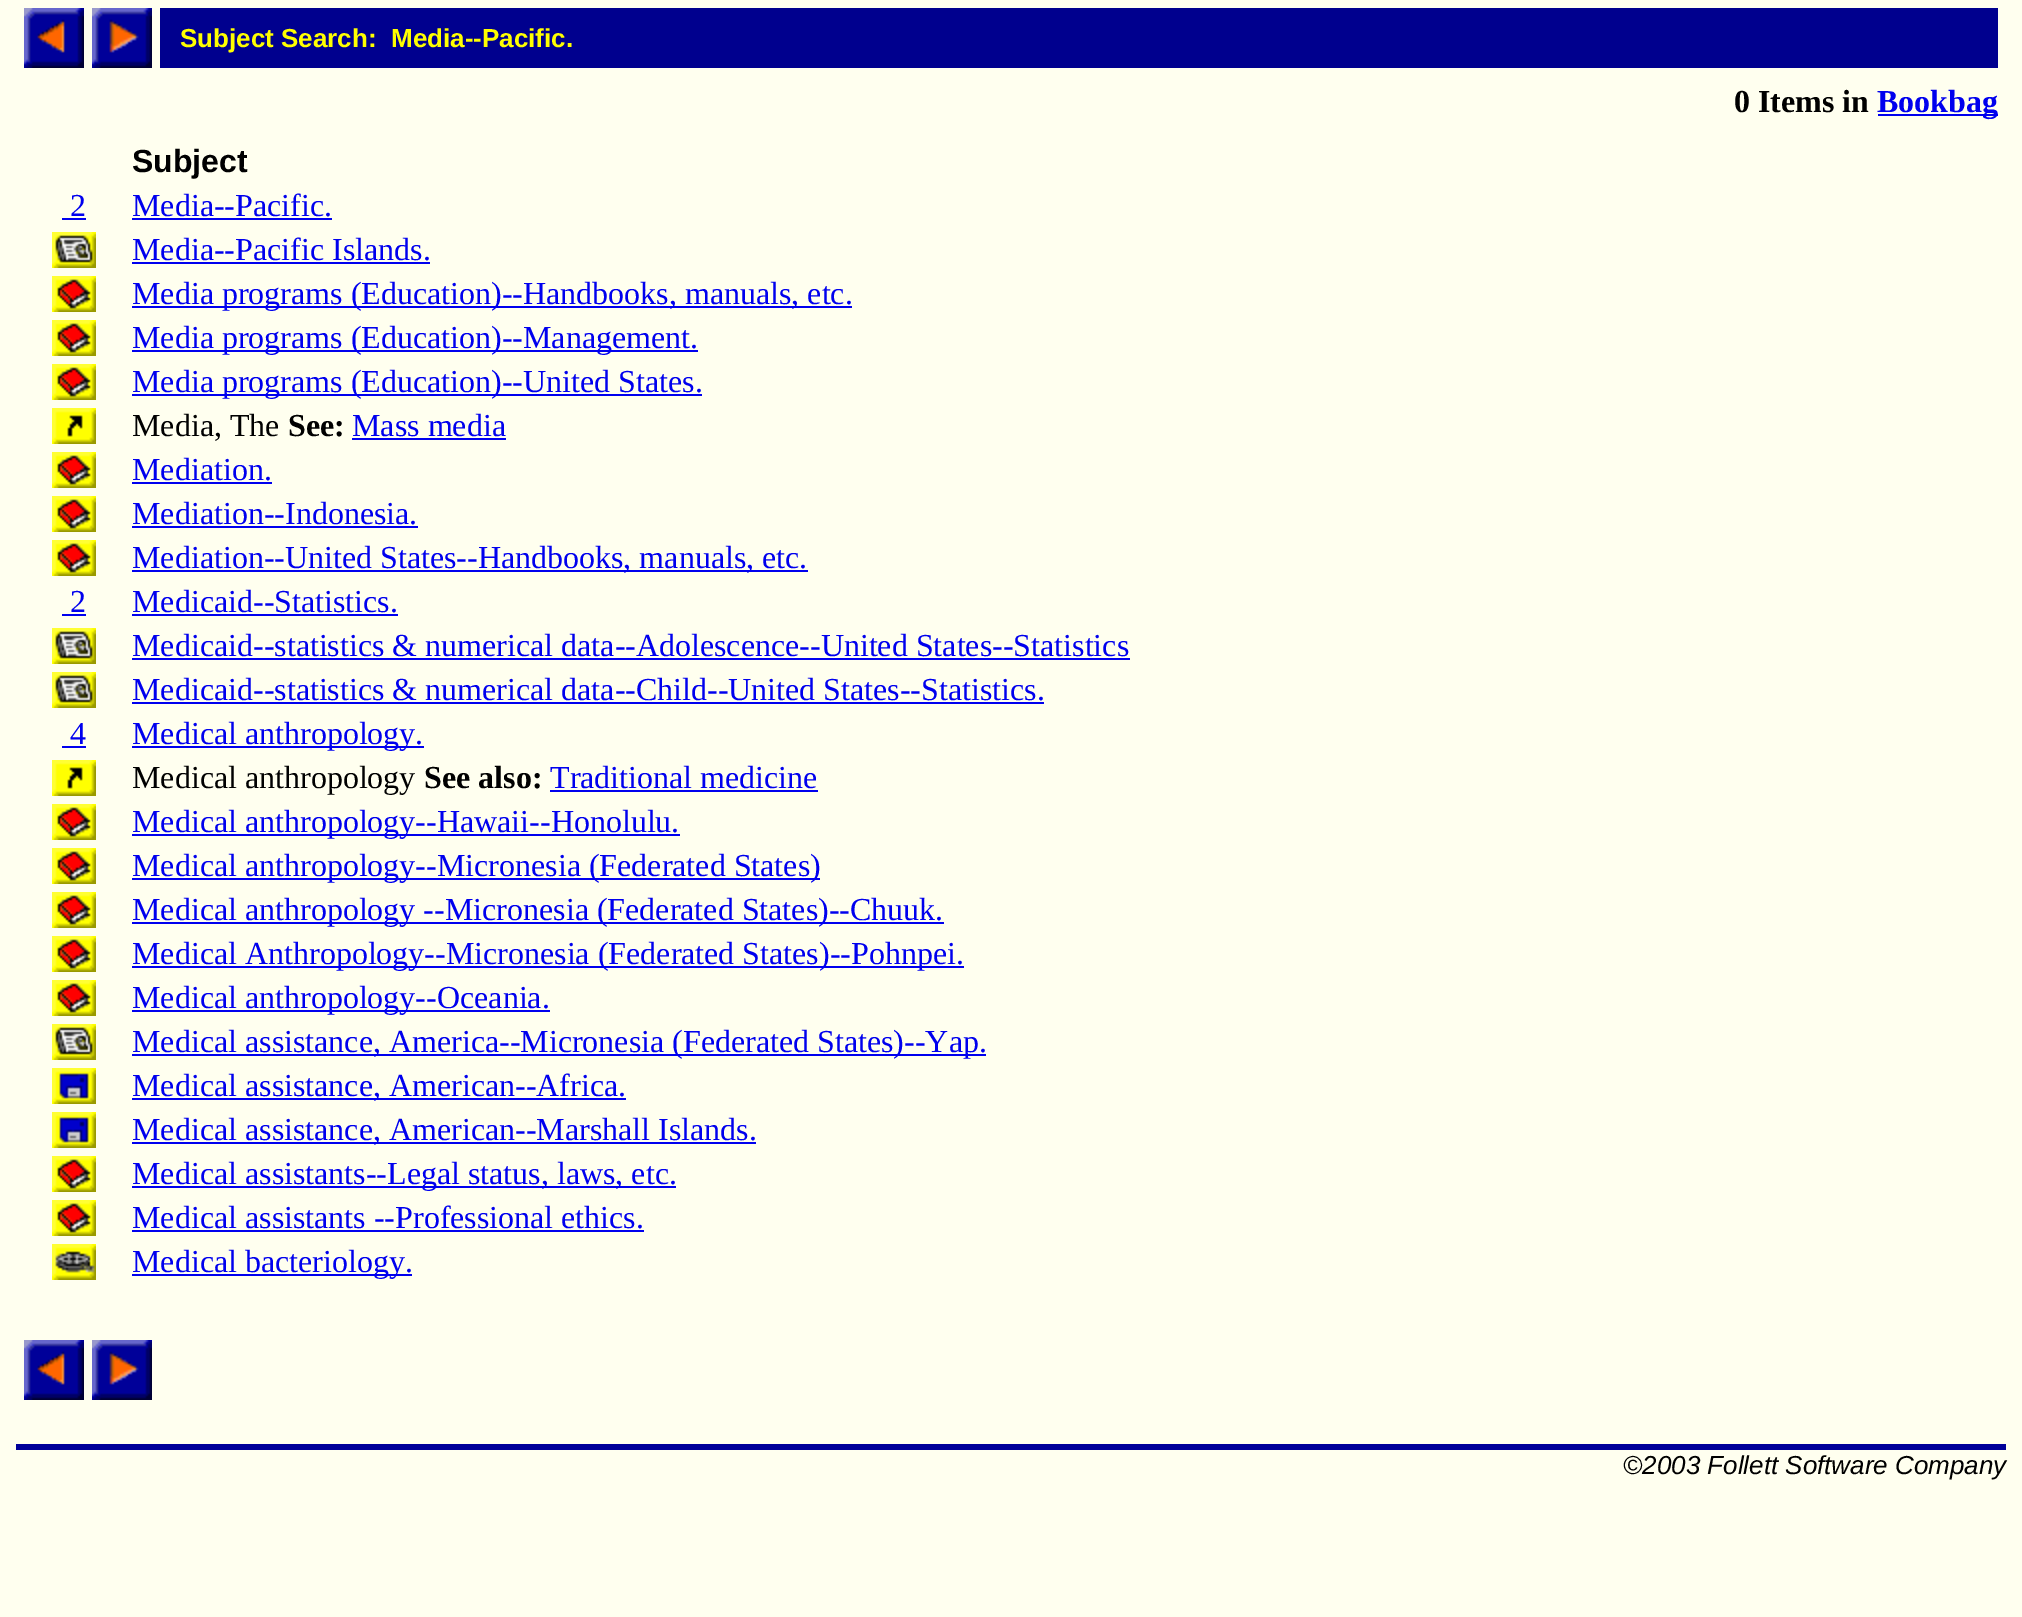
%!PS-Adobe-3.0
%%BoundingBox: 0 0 2022 1617
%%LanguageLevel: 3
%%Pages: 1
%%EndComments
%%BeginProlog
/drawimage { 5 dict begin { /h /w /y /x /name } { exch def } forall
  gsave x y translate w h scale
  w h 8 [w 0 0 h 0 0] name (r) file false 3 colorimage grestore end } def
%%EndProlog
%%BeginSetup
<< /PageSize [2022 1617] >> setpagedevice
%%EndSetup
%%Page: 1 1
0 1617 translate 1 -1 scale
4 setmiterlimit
1 1 0.937 setrgbcolor
0 0 2022 1617 rectfill
(images/1.raw) 24 8 60 60 drawimage
(images/2.raw) 92 8 60 60 drawimage
0 0 0.557 setrgbcolor
160 8 1838 60 rectfill
0 0 0.933 setrgbcolor
1878 114 120 2 rectfill
62 218 24 2 rectfill
132 218 200 2 rectfill
(images/3.raw) 52 232 44 36 drawimage
132 262 298 2 rectfill
(images/4.raw) 52 276 44 36 drawimage
132 306 720 2 rectfill
(images/4.raw) 52 320 44 36 drawimage
132 350 566 2 rectfill
(images/4.raw) 52 364 44 36 drawimage
132 394 570 2 rectfill
(images/5.raw) 52 408 44 36 drawimage
352 438 154 2 rectfill
(images/4.raw) 52 452 44 36 drawimage
132 482 140 2 rectfill
(images/4.raw) 52 496 44 36 drawimage
132 526 286 2 rectfill
(images/4.raw) 52 540 44 36 drawimage
132 570 676 2 rectfill
62 614 24 2 rectfill
132 614 266 2 rectfill
(images/3.raw) 52 628 44 36 drawimage
132 658 998 2 rectfill
(images/3.raw) 52 672 44 36 drawimage
132 702 912 2 rectfill
62 746 24 2 rectfill
132 746 292 2 rectfill
(images/5.raw) 52 760 44 36 drawimage
550 790 268 2 rectfill
(images/4.raw) 52 804 44 36 drawimage
132 834 548 2 rectfill
(images/4.raw) 52 848 44 36 drawimage
132 878 688 2 rectfill
(images/4.raw) 52 892 44 36 drawimage
132 922 812 2 rectfill
(images/4.raw) 52 936 44 36 drawimage
132 966 832 2 rectfill
(images/4.raw) 52 980 44 36 drawimage
132 1010 418 2 rectfill
(images/3.raw) 52 1024 44 36 drawimage
132 1054 854 2 rectfill
(images/6.raw) 52 1068 44 36 drawimage
132 1098 494 2 rectfill
(images/6.raw) 52 1112 44 36 drawimage
132 1142 624 2 rectfill
(images/4.raw) 52 1156 44 36 drawimage
132 1186 544 2 rectfill
(images/4.raw) 52 1200 44 36 drawimage
132 1230 512 2 rectfill
(images/7.raw) 52 1244 44 36 drawimage
132 1274 280 2 rectfill
(images/1.raw) 24 1340 60 60 drawimage
(images/2.raw) 92 1340 60 60 drawimage
0 0 0.6 setrgbcolor
16 1444 1990 6 rectfill
/LiberationSans-Bold [26 0 0 -26 0 0] selectfont
1 1 0 setrgbcolor
180 47 moveto (Subject Search:  Media--Pacific.) show
/LiberationSerif-Bold [32 0 0 -32 0 0] selectfont
0 setgray
1734 112 moveto (0 Items in) show
0 0 0.933 setrgbcolor
1877 112 moveto (Bookbag) show
/LiberationSans-Bold [32 0 0 -32 0 0] selectfont
0 setgray
132 172 moveto (Subject) show
/LiberationSerif-Regular [32 0 0 -32 0 0] selectfont
0 0 0.933 setrgbcolor
70 216 moveto (2) show
132 216 moveto (Media--Pacific.) show
132 260 moveto (Media--Pacific Islands.) show
132 304 moveto (Media programs \(Education\)--Handbooks, manuals, etc.) show
132 348 moveto (Media programs \(Education\)--Management.) show
132 392 moveto (Media programs \(Education\)--United States.) show
0 setgray
132 436 moveto (Media, The) show
/LiberationSerif-Bold [32 0 0 -32 0 0] selectfont
288 436 moveto (See:) show
/LiberationSerif-Regular [32 0 0 -32 0 0] selectfont
0 0 0.933 setrgbcolor
352 436 moveto (Mass media) show
132 480 moveto (Mediation.) show
132 524 moveto (Mediation--Indonesia.) show
132 568 moveto (Mediation--United States--Handbooks, manuals, etc.) show
70 612 moveto (2) show
132 612 moveto (Medicaid--Statistics.) show
132 656 moveto (Medicaid--statistics & numerical data--Adolescence--United States--Statistics) show
132 700 moveto (Medicaid--statistics & numerical data--Child--United States--Statistics.) show
70 744 moveto (4) show
132 744 moveto (Medical anthropology.) show
0 setgray
132 788 moveto (Medical anthropology) show
/LiberationSerif-Bold [32 0 0 -32 0 0] selectfont
424 788 moveto (See also:) show
/LiberationSerif-Regular [32 0 0 -32 0 0] selectfont
0 0 0.933 setrgbcolor
550 788 moveto (Traditional medicine) show
132 832 moveto (Medical anthropology--Hawaii--Honolulu.) show
132 876 moveto (Medical anthropology--Micronesia \(Federated States\)) show
132 920 moveto (Medical anthropology --Micronesia \(Federated States\)--Chuuk.) show
132 964 moveto (Medical Anthropology--Micronesia \(Federated States\)--Pohnpei.) show
132 1008 moveto (Medical anthropology--Oceania.) show
132 1052 moveto (Medical assistance, America--Micronesia \(Federated States\)--Yap.) show
132 1096 moveto (Medical assistance, American--Africa.) show
132 1140 moveto (Medical assistance, American--Marshall Islands.) show
132 1184 moveto (Medical assistants--Legal status, laws, etc.) show
132 1228 moveto (Medical assistants --Professional ethics.) show
132 1272 moveto (Medical bacteriology.) show
/LiberationSans-Italic [26 0 0 -26 0 0] selectfont
0 setgray
1623 1474 moveto (©2003 Follett Software Company) show
showpage
%%EOF
